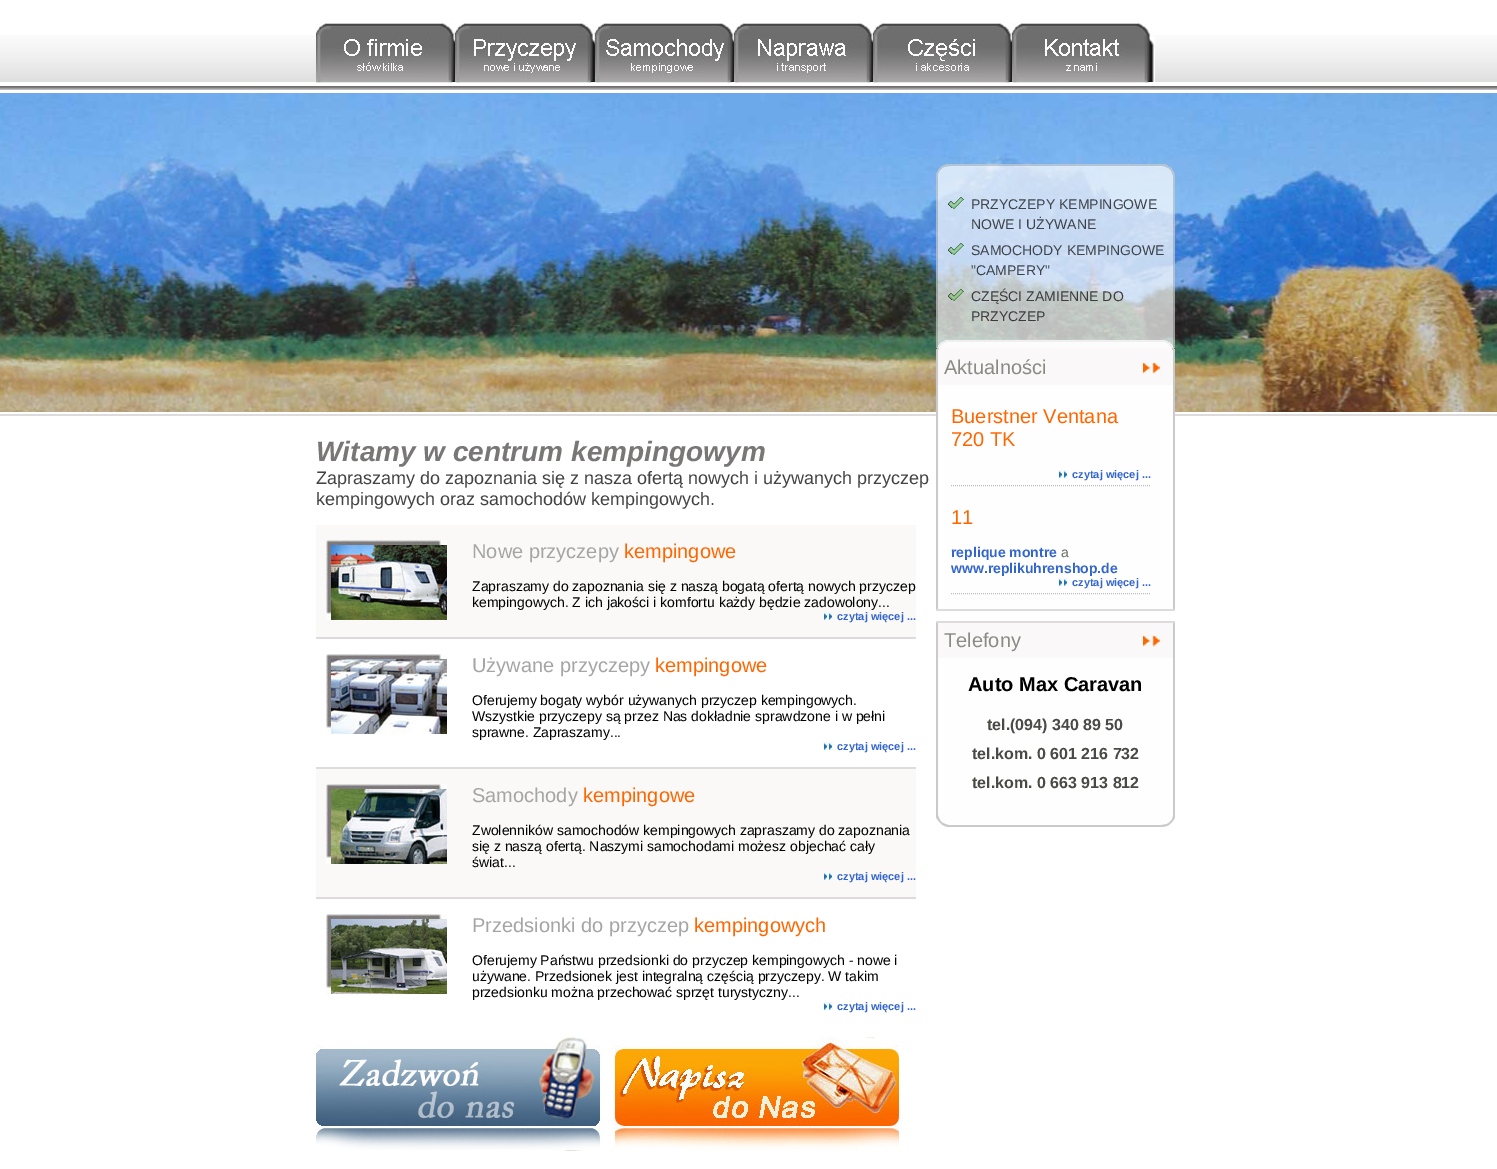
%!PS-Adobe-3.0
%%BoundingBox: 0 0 1497 1169
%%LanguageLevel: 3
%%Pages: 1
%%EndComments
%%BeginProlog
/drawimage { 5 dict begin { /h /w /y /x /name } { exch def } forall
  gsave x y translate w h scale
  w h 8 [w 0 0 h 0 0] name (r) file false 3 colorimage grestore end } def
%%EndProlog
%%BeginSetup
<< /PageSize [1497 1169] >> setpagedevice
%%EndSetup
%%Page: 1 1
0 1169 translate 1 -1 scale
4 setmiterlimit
1 setgray
0 0 1497 1169 rectfill
(images/1.raw) 0 35 1497 55 drawimage
(images/2.raw) 316 23 839 60 drawimage
(images/3.raw) 0 93 1497 319 drawimage
0.867 0.859 0.859 setrgbcolor
0 414 1497 2 rectfill
0.98 0.976 0.973 setrgbcolor
316 525 600 112 rectfill
0.867 0.859 0.859 setrgbcolor
316 637 600 2 rectfill
(images/4.raw) 326 540 121 80 drawimage
(images/5.raw) 823 612 10 8 drawimage
316 767 600 2 rectfill
(images/6.raw) 326 654 121 80 drawimage
(images/5.raw) 823 742 10 8 drawimage
0.98 0.976 0.973 setrgbcolor
316 769 600 128 rectfill
0.867 0.859 0.859 setrgbcolor
316 897 600 2 rectfill
(images/7.raw) 326 784 121 80 drawimage
(images/5.raw) 823 872 10 8 drawimage
(images/8.raw) 326 914 121 80 drawimage
(images/5.raw) 823 1002 10 8 drawimage
(images/9.raw) 316 1037 583 114 drawimage
(images/14.raw) 936 340 239 10 drawimage
(images/10.raw) 936 164 239 184 drawimage
(images/11.raw) 948 197 16 12 drawimage
(images/12.raw) 948 243 16 12 drawimage
(images/13.raw) 948 289 16 12 drawimage
(images/15.raw) 936 350 239 465 drawimage
936 609 239 2 rectfill
0.98 0.973 0.973 setrgbcolor
938 350 235 35 rectfill
(images/16.raw) 1141 362 21 12 drawimage
0.741 setgray
[1 1] 0 setdash
newpath 951 485.5 moveto 1151 485.5 lineto stroke
(images/5.raw) 1058 470 10 8 drawimage
newpath 951 593.5 moveto 1151 593.5 lineto stroke
(images/5.raw) 1058 578 10 8 drawimage
(images/17.raw) 936 815 239 12 drawimage
1 setgray
936 611 239 10 rectfill
0.867 0.859 0.859 setrgbcolor
936 621 239 2 rectfill
0.98 0.973 0.973 setrgbcolor
938 623 235 35 rectfill
(images/16.raw) 1141 635 21 12 drawimage
/LiberationSans-BoldItalic [28 0 0 -28 0 0] selectfont
0.475 0.463 0.463 setrgbcolor
316 461 moveto (Witamy w centrum kempingowym) show
/LiberationSans-Regular [18 0 0 -18 0 0] selectfont
0.267 0.259 0.259 setrgbcolor
316 484 moveto (Zapraszamy do zapoznania się z nasza ofertą nowych i używanych przyczep) show
316 505 moveto (kempingowych oraz samochodów kempingowych.) show
/LiberationSans-Regular [20 0 0 -20 0 0] selectfont
0.647 setgray
472 558 moveto (Nowe przyczepy) show
1 0.4 0 setrgbcolor
624 558 moveto (kempingowe) show
/LiberationSans-Regular [14 0 0 -14 0 0] selectfont
0 setgray
472 591 moveto (Zapraszamy do zapoznania się z naszą bogatą ofertą nowych przyczep) show
472 607 moveto (kempingowych. Z ich jakości i komfortu każdy będzie zadowolony...) show
/LiberationSans-Bold [11 0 0 -11 0 0] selectfont
0.2 0.4 0.8 setrgbcolor
837 620 moveto (czytaj więcej ...) show
/LiberationSans-Regular [20 0 0 -20 0 0] selectfont
0.647 setgray
472 672 moveto (Używane przyczepy) show
1 0.4 0 setrgbcolor
655 672 moveto (kempingowe) show
/LiberationSans-Regular [14 0 0 -14 0 0] selectfont
0 setgray
472 705 moveto (Oferujemy bogaty wybór używanych przyczep kempingowych.) show
472 721 moveto (Wszystkie przyczepy są przez Nas dokładnie sprawdzone i w pełni) show
472 737 moveto (sprawne. Zapraszamy...) show
/LiberationSans-Bold [11 0 0 -11 0 0] selectfont
0.2 0.4 0.8 setrgbcolor
837 750 moveto (czytaj więcej ...) show
/LiberationSans-Regular [20 0 0 -20 0 0] selectfont
0.647 setgray
472 802 moveto (Samochody) show
1 0.4 0 setrgbcolor
583 802 moveto (kempingowe) show
/LiberationSans-Regular [14 0 0 -14 0 0] selectfont
0 setgray
472 835 moveto (Zwolenników samochodów kempingowych zapraszamy do zapoznania) show
472 851 moveto (się z naszą ofertą. Naszymi samochodami możesz objechać cały) show
472 867 moveto (świat...) show
/LiberationSans-Bold [11 0 0 -11 0 0] selectfont
0.2 0.4 0.8 setrgbcolor
837 880 moveto (czytaj więcej ...) show
/LiberationSans-Regular [20 0 0 -20 0 0] selectfont
0.647 setgray
472 932 moveto (Przedsionki do przyczep) show
1 0.4 0 setrgbcolor
694 932 moveto (kempingowych) show
/LiberationSans-Regular [14 0 0 -14 0 0] selectfont
0 setgray
472 965 moveto (Oferujemy Państwu przedsionki do przyczep kempingowych - nowe i) show
472 981 moveto (używane. Przedsionek jest integralną częścią przyczepy. W takim) show
472 997 moveto (przedsionku można przechować sprzęt turystyczny...) show
/LiberationSans-Bold [11 0 0 -11 0 0] selectfont
0.2 0.4 0.8 setrgbcolor
837 1010 moveto (czytaj więcej ...) show
/LiberationSans-Regular [14 0 0 -14 0 0] selectfont
0.243 0.263 0.29 setrgbcolor
971 209 moveto (PRZYCZEPY KEMPINGOWE) show
971 229 moveto (NOWE I UŻYWANE) show
971 255 moveto (SAMOCHODY KEMPINGOWE) show
971 275 moveto ("CAMPERY") show
0.227 0.235 0.239 setrgbcolor
971 301 moveto (CZĘŚCI ZAMIENNE DO) show
971 321 moveto (PRZYCZEP) show
/LiberationSans-Regular [20 0 0 -20 0 0] selectfont
0.545 0.541 0.518 setrgbcolor
944 374 moveto (Aktualności) show
1 0.4 0 setrgbcolor
951 423 moveto (Buerstner Ventana) show
951 446 moveto (720 TK) show
/LiberationSans-Bold [11 0 0 -11 0 0] selectfont
0.2 0.4 0.8 setrgbcolor
1072 478 moveto (czytaj więcej ...) show
/LiberationSans-Regular [20 0 0 -20 0 0] selectfont
1 0.4 0 setrgbcolor
951 524 moveto (11) show
/LiberationSans-Bold [14 0 0 -14 0 0] selectfont
0.2 0.4 0.8 setrgbcolor
951 557 moveto (replique montre) show
/LiberationSans-Regular [14 0 0 -14 0 0] selectfont
0.408 0.408 0.4 setrgbcolor
1061 557 moveto (a) show
/LiberationSans-Bold [14 0 0 -14 0 0] selectfont
0.2 0.4 0.8 setrgbcolor
951 573 moveto (www.replikuhrenshop.de) show
/LiberationSans-Bold [11 0 0 -11 0 0] selectfont
1072 586 moveto (czytaj więcej ...) show
/LiberationSans-Regular [20 0 0 -20 0 0] selectfont
0.545 0.541 0.518 setrgbcolor
944 647 moveto (Telefony) show
/LiberationSans-Bold [20 0 0 -20 0 0] selectfont
0 setgray
968 691 moveto (Auto Max Caravan) show
/LiberationSans-Bold [16 0 0 -16 0 0] selectfont
0.286 0.286 0.275 setrgbcolor
987 730 moveto (tel.\(094\) 340 89 50) show
972 759 moveto (tel.kom. 0 601 216 732) show
972 788 moveto (tel.kom. 0 663 913 812) show
showpage
%%EOF
